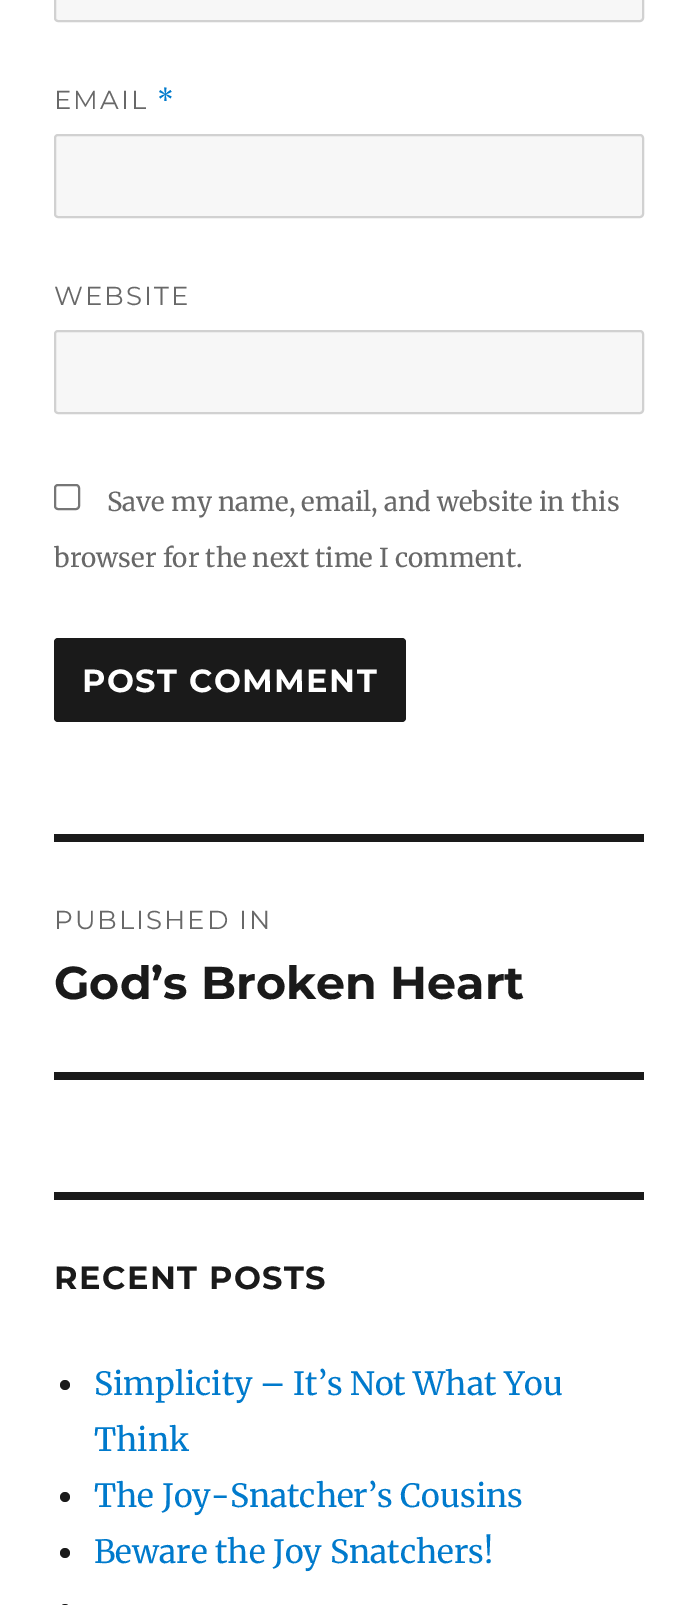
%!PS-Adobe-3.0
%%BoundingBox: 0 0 698 1605
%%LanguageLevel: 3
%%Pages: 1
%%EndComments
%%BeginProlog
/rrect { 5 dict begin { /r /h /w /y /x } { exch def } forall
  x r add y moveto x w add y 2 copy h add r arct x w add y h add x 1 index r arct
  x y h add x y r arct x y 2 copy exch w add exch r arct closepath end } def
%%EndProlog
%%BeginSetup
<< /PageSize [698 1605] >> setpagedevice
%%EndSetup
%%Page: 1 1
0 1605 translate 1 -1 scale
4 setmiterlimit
1 setgray
0 0 698 1605 rectfill
0.969 setgray
55 -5 588 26 3 rrect gsave fill grestore
0.82 setgray
2 setlinewidth
stroke
0.969 setgray
55 135 588 82 3 rrect gsave fill grestore
0.82 setgray
stroke
0.969 setgray
55 331 588 82 3 rrect gsave fill grestore
0.82 setgray
stroke
0.463 setgray
55 485 24 24 3 rrect stroke
0.102 setgray
54 638 352 84 4 rrect fill
54 834 590 8 rectfill
54 1072 590 8 rectfill
54 1192 590 8 rectfill
newpath 65 1385 5 0 360 arc closepath fill
newpath 65 1497 5 0 360 arc closepath fill
newpath 65 1553 5 0 360 arc closepath fill
60 1604 10 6 5 rrect fill
/Montserrat-Regular [26 0 0 -26 0 0] selectfont
0.408 setgray
54 109 moveto 2 0 (EMAIL) ashow
/Merriweather-Regular [26 0 0 -26 0 0] selectfont
0 0.478 0.8 setrgbcolor
157 109 moveto 2 0 (*) ashow
/Montserrat-Regular [26 0 0 -26 0 0] selectfont
0.408 setgray
54 305 moveto 2 0 (WEBSITE) ashow
/Merriweather-Regular [26 0 0 -26 0 0] selectfont
107 511 moveto (Save my name, email, and website in this) show
54 567 moveto (browser for the next time I comment.) show
/Montserrat-Bold [32 0 0 -32 0 0] selectfont
1 setgray
82 692 moveto 1.5 0 (POST COMMENT) ashow
/Montserrat-Regular [26 0 0 -26 0 0] selectfont
0.408 setgray
54 929 moveto 2 0 (PUBLISHED IN) ashow
/Montserrat-Bold [46 0 0 -46 0 0] selectfont
0.102 setgray
54 999 moveto (God’s Broken Heart) show
/Montserrat-Bold [32 0 0 -32 0 0] selectfont
54 1289 moveto 1.5 0 (RECENT POSTS) ashow
/Merriweather-Regular [32 0 0 -32 0 0] selectfont
0 0.478 0.8 setrgbcolor
94 1395 moveto (Simplicity – It’s Not What You) show
94 1451 moveto (Think) show
94 1507 moveto (The Joy-Snatcher’s Cousins) show
94 1563 moveto (Beware the Joy Snatchers!) show
showpage
%%EOF
